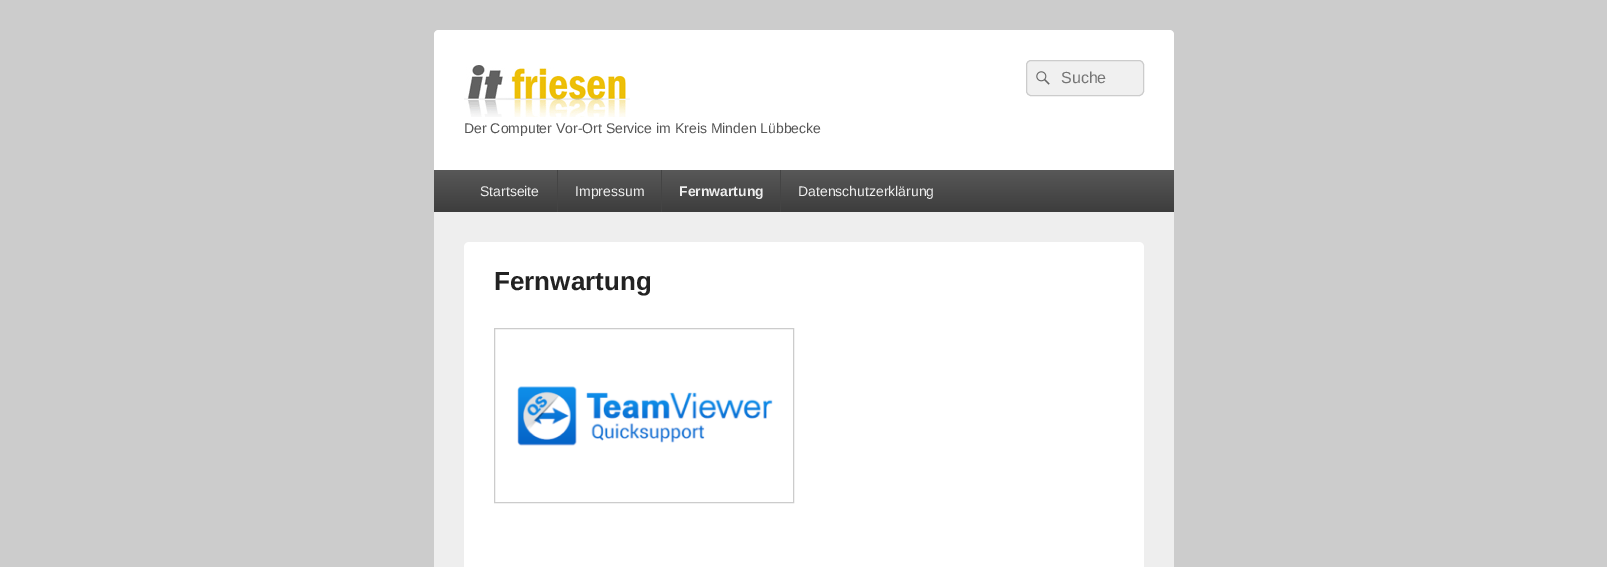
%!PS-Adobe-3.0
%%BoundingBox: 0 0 1607 567
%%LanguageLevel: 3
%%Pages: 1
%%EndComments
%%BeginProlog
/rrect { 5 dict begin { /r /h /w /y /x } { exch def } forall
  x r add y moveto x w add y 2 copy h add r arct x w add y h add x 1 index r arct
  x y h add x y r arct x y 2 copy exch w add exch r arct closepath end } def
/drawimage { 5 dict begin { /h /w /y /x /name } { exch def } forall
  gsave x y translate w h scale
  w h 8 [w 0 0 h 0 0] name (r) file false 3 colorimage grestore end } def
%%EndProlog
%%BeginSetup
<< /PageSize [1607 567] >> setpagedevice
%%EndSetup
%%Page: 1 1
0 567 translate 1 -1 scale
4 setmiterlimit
0.8 setgray
0 0 1607 567 rectfill
0.933 setgray
434 30 740 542 5 rrect fill
1 setgray
newpath 439 30 moveto 1169 30 lineto 1172 30 1174 32 1174 35 curveto 1174 212 lineto 434 212 lineto 434 35 lineto 434 32 436 30 439 30 curveto closepath fill
0.941 setgray
1026.5 60.5 117 35 4.5 rrect gsave fill grestore
0.8 setgray
stroke
(images/1.raw) 1036 71 14 14 drawimage
(images/2.raw) 464 65 166 52 drawimage
gsave newpath 434 170 moveto 1174 170 lineto 1174 212 lineto 434 212 lineto closepath clip newpath
<< /ShadingType 2 /ColorSpace /DeviceRGB /Coords [804 170 804 212] /Extend [true true] /Function << /FunctionType 2 /Domain [0 1] /C0 [0.345 0.345 0.345] /C1 [0.239 0.239 0.239] /N 1 >> >> shfill grestore
0.267 setgray
557 170 1 42 rectfill
661 170 1 42 rectfill
780 170 1 42 rectfill
1 setgray
464 242 680 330 5 rrect fill
0.8 setgray
494.5 328.5 299 174 rectstroke
(images/3.raw) 517 386 256 60 drawimage
/LiberationSans-Regular [16 0 0 -16 0 0] selectfont
0.459 setgray
1061 83 moveto (Suche) show
/LiberationSans-Regular [14 0 0 -14 0 0] selectfont
0.333 setgray
464 133 moveto (Der Computer Vor-Ort Service im Kreis Minden Lübbecke) show
0.933 setgray
480 196 moveto (Startseite) show
575 196 moveto (Impressum) show
/LiberationSans-Bold [14 0 0 -14 0 0] selectfont
679 196 moveto (Fernwartung) show
/LiberationSans-Regular [14 0 0 -14 0 0] selectfont
798 196 moveto (Datenschutzerklärung) show
/LiberationSans-Bold [26 0 0 -26 0 0] selectfont
0.133 setgray
494 290 moveto (Fernwartung) show
showpage
%%EOF
